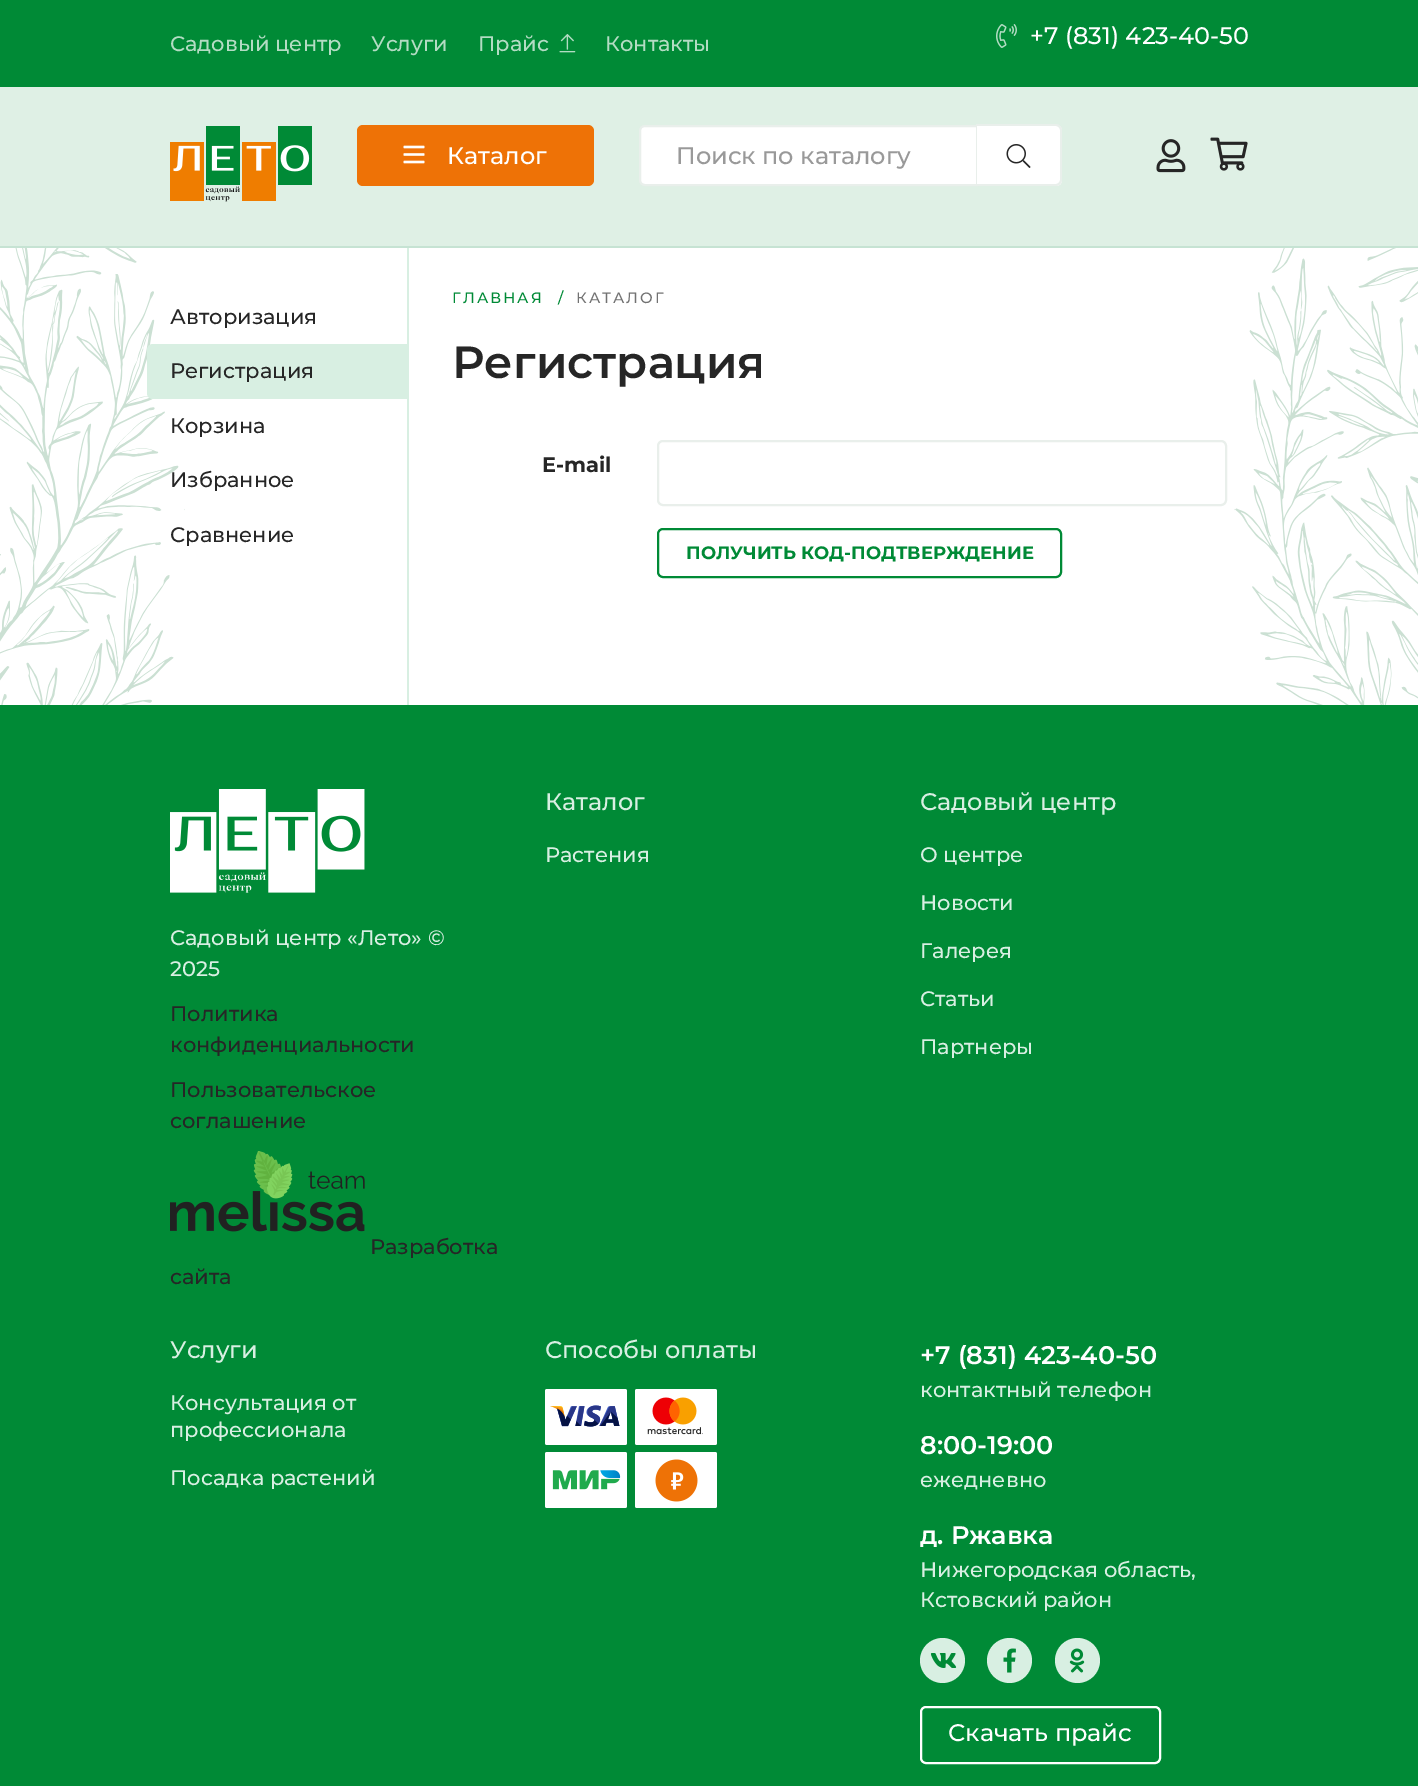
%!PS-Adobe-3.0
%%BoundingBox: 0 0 1418 1786
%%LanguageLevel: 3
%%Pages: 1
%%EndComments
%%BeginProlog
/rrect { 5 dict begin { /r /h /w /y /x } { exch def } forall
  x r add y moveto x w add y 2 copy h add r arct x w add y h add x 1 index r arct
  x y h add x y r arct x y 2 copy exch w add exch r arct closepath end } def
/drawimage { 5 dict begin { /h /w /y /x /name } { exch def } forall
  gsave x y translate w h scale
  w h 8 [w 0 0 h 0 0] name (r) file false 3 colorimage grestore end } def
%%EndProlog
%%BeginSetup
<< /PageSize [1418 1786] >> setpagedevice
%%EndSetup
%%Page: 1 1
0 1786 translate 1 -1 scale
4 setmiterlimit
1 setgray
0 0 1418 1786 rectfill
0 0.541 0.212 setrgbcolor
0 0 1418 87 rectfill
(images/1.raw) 559 34 17 19 drawimage
(images/2.raw) 996 24 21 24 drawimage
0.875 0.941 0.898 setrgbcolor
0 87 1418 159 rectfill
0.776 0.89 0.827 setrgbcolor
0 246 1418 2 rectfill
(images/3.raw) 170 126 142 76 drawimage
0.933 0.447 0.024 setrgbcolor
357 125 237 61 6 rrect fill
(images/4.raw) 403 145 22 19 drawimage
1 setgray
newpath 645 126 moveto 977 126 lineto 977 185 lineto 645 185 lineto 642 185 640 183 640 180 curveto 640 131 lineto 640 128 642 126 645 126 curveto closepath gsave fill grestore
0.914 0.937 0.922 setrgbcolor
2 setlinewidth
stroke
1 setgray
newpath 977 125 moveto 1056 125 lineto 1059.5 125 1062 127.5 1062 131 curveto 1062 180 lineto 1062 183.5 1059.5 186 1056 186 curveto 977 186 lineto closepath fill
0.914 0.937 0.922 setrgbcolor
newpath 976 124 moveto 1056 124 lineto 1059 124 1062 127 1062 130 curveto 1062 180 lineto 1062 183 1059 186 1056 186 curveto 976 186 lineto closepath 976 126 moveto 1056 126 lineto 1058 126 1060 128 1060 130 curveto 1060 180 lineto 1060 182 1058 184 1056 184 curveto 976 184 lineto closepath eofill
(images/5.raw) 1006 144 25 24 drawimage
(images/6.raw) 1156 139 30 34 drawimage
(images/7.raw) 1210 137 38 34 drawimage
(images/8.raw) 0 248 185 457 drawimage
(images/9.raw) 1234 248 184 457 drawimage
0.847 0.937 0.886 setrgbcolor
newpath 153 344 moveto 407 344 lineto 407 399 lineto 153 399 lineto 149.5 399 147 396.5 147 393 curveto 147 350 lineto 147 346.5 149.5 344 153 344 curveto closepath fill
407 248 2 457 rectfill
0.914 0.937 0.922 setrgbcolor
658 441 568 64 5 rrect stroke
0 0.541 0.212 setrgbcolor
658 529 403 48 5 rrect stroke
0 705 1418 1081 rectfill
(images/10.raw) 170 789 195 104 drawimage
(images/11.raw) 170 1151 195 81 drawimage
(images/12.raw) 545 1389 172 119 drawimage
0.847 0.937 0.886 setrgbcolor
newpath 942.5 1660.5 22.5 0 360 arc closepath fill
(images/13.raw) 930 1653 27 15 drawimage
newpath 1009.5 1660.5 22.5 0 360 arc closepath fill
(images/14.raw) 1003 1648 13 25 drawimage
newpath 1077.5 1660.5 22.5 0 360 arc closepath fill
(images/15.raw) 1069 1648 16 25 drawimage
1 setgray
921 1707 239 56 5 rrect stroke
/Montserrat-Medium [21 0 0 -21 0 0] selectfont
0.702 0.863 0.765 setrgbcolor
170 51 moveto (Садовый центр) show
371 51 moveto (Услуги) show
478 51 moveto (Прайс) show
605 51 moveto (Контакты) show
/Montserrat-Medium [24 0 0 -24 0 0] selectfont
1 setgray
1030 44 moveto (+7 \(831\) 423-40-50) show
447 164 moveto (Каталог) show
0.6 setgray
676 164 moveto (Поиск по каталогу) show
/Montserrat-Medium [21 0 0 -21 0 0] selectfont
0.149 setgray
170 324 moveto (Авторизация) show
170 378 moveto (Регистрация) show
170 433 moveto (Корзина) show
170 487 moveto (Избранное) show
170 542 moveto (Сравнение) show
/Montserrat-Medium [15 0 0 -15 0 0] selectfont
0 0.541 0.212 setrgbcolor
452 303 moveto 2 0 (ГЛАВНАЯ) ashow
558 303 moveto (/) show
0.447 setgray
576 303 moveto 2 0 (КАТАЛОГ) ashow
/Montserrat-SemiBold [45 0 0 -45 0 0] selectfont
0.149 setgray
452 378 moveto (Регистрация) show
/Montserrat-Bold [21 0 0 -21 0 0] selectfont
542 472 moveto (E-mail) show
/Montserrat-Bold [18 0 0 -18 0 0] selectfont
0 0.541 0.212 setrgbcolor
686 559 moveto (ПОЛУЧИТЬ КОД-ПОДТВЕРЖДЕНИЕ) show
/Montserrat-Medium [24 0 0 -24 0 0] selectfont
0.847 0.937 0.886 setrgbcolor
545 810 moveto (Каталог) show
/Montserrat-Medium [21 0 0 -21 0 0] selectfont
545 862 moveto (Растения) show
/Montserrat-Medium [24 0 0 -24 0 0] selectfont
920 810 moveto (Садовый центр) show
/Montserrat-Medium [21 0 0 -21 0 0] selectfont
920 862 moveto (О центре) show
920 910 moveto (Новости) show
920 958 moveto (Галерея) show
920 1006 moveto (Статьи) show
920 1054 moveto (Партнеры) show
170 945 moveto (Садовый центр «Лето» ©) show
170 976 moveto (2025) show
0.149 setgray
170 1021 moveto (Политика) show
170 1052 moveto (конфиденциальности) show
170 1097 moveto (Пользовательское) show
170 1128 moveto (соглашение) show
370 1254 moveto (Разработка) show
170 1284 moveto (сайта) show
/Montserrat-Medium [24 0 0 -24 0 0] selectfont
0.847 0.937 0.886 setrgbcolor
170 1358 moveto (Услуги) show
/Montserrat-Medium [21 0 0 -21 0 0] selectfont
170 1410 moveto (Консультация от) show
170 1437 moveto (профессионала) show
170 1485 moveto (Посадка растений) show
/Montserrat-Medium [24 0 0 -24 0 0] selectfont
545 1358 moveto (Способы оплаты) show
/Montserrat-SemiBold [25.5 0 0 -25.5 0 0] selectfont
1 setgray
920 1364 moveto (+7 \(831\) 423-40-50) show
/Montserrat-Medium [21 0 0 -21 0 0] selectfont
0.847 0.937 0.886 setrgbcolor
920 1397 moveto (контактный телефон) show
/Montserrat-SemiBold [25.5 0 0 -25.5 0 0] selectfont
1 setgray
920 1454 moveto (8:00-19:00) show
/Montserrat-Medium [21 0 0 -21 0 0] selectfont
0.847 0.937 0.886 setrgbcolor
920 1487 moveto (ежедневно) show
/Montserrat-SemiBold [25.5 0 0 -25.5 0 0] selectfont
1 setgray
920 1544 moveto (д. Ржавка) show
/Montserrat-Medium [21 0 0 -21 0 0] selectfont
0.847 0.937 0.886 setrgbcolor
920 1577 moveto (Нижегородская область,) show
920 1607 moveto (Кстовский район) show
/Montserrat-Medium [24 0 0 -24 0 0] selectfont
1 setgray
948 1741 moveto (Скачать прайс) show
showpage
%%EOF
